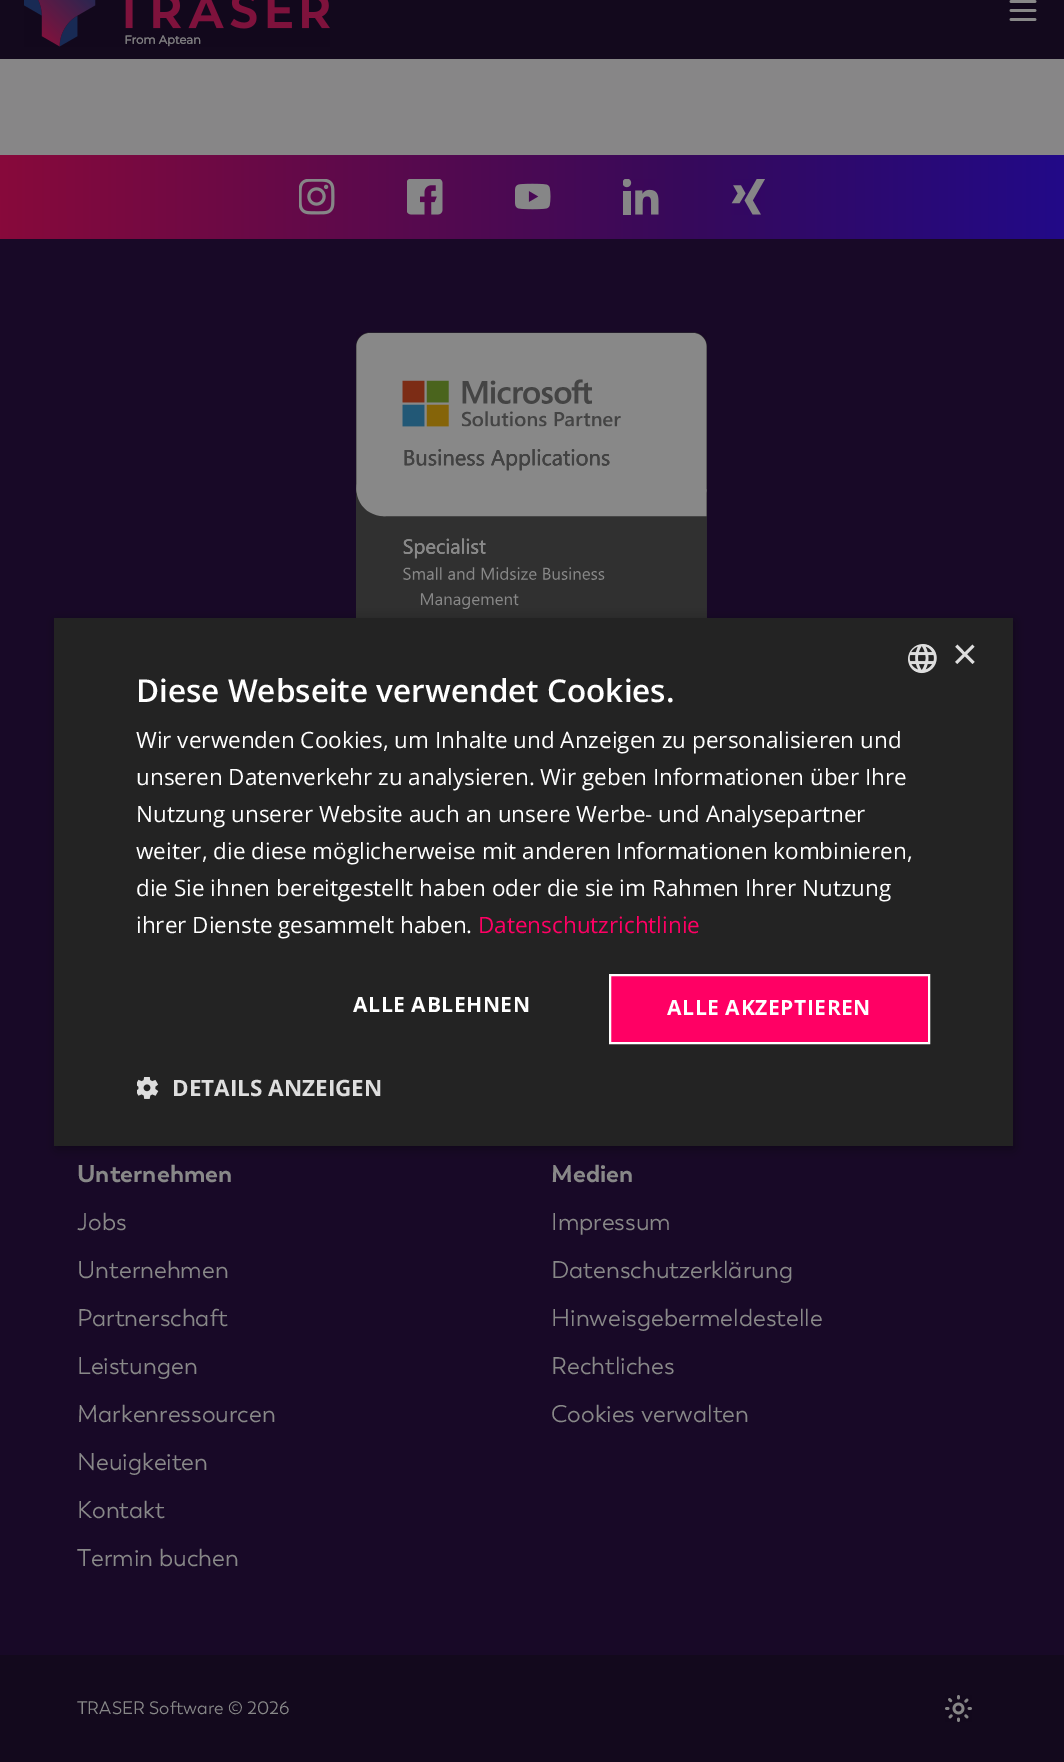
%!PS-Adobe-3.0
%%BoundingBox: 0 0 1064 1762
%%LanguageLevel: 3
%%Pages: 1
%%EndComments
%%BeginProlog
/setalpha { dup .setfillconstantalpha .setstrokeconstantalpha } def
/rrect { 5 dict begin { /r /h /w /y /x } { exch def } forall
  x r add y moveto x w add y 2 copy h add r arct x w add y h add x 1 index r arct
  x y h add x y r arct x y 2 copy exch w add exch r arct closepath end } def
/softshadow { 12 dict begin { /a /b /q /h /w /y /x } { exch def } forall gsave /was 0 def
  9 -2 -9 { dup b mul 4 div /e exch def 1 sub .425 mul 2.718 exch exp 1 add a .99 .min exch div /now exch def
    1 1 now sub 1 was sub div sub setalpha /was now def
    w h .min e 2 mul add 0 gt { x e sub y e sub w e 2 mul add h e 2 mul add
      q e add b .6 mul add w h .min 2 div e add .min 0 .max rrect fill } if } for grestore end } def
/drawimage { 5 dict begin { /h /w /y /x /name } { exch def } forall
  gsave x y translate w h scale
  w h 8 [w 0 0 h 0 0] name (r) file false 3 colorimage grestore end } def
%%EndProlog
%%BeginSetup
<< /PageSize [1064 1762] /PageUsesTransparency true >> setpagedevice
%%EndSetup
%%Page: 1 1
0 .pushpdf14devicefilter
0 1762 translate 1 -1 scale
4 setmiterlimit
0.529 0.525 0.529 setrgbcolor
0 0 1064 1762 rectfill
0.075 0.035 0.114 setrgbcolor
0 0 1064 59 rectfill
(images/1.raw) 24 0 306 47 drawimage
(images/2.raw) 1009 0 28 21 drawimage
gsave newpath 0 155 moveto 1064 155 lineto 1064 239 lineto 0 239 lineto closepath clip newpath
<< /ShadingType 2 /ColorSpace /DeviceRGB /Coords [0 197 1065 196] /Extend [true true] /Function << /FunctionType 3 /Domain [0 1] /Functions [<< /FunctionType 2 /Domain [0 1] /C0 [0.533 0.035 0.231] /C1 [0.212 0.035 0.357] /N 1 >> << /FunctionType 2 /Domain [0 1] /C0 [0.212 0.035 0.357] /C1 [0.133 0.035 0.533] /N 1 >>] /Bounds [0.65] /Encode [0 1 0 1] >> >> shfill grestore
(images/3.raw) 299 179 36 36 drawimage
(images/4.raw) 407 179 36 36 drawimage
(images/5.raw) 515 183 36 27 drawimage
(images/6.raw) 623 179 36 36 drawimage
(images/7.raw) 731 179 34 36 drawimage
0.094 0.035 0.153 setrgbcolor
0 239 1064 1416 rectfill
(images/10.raw) 356 332 351 286 drawimage
0 setgray
56 621 958 528 0 6 0.35 softshadow
0.137 setgray
54 618 959 528 rectfill
(images/8.raw) 908 644 29 30 drawimage
1 0 0.392 setrgbcolor
newpath 610 975 moveto 929 975 lineto 929 1043 lineto 610 1043 lineto closepath gsave fill grestore
1 setgray
2 setlinewidth
stroke
(images/9.raw) 137 1077 22 22 drawimage
0.075 0.035 0.114 setrgbcolor
0 1655 1064 107 rectfill
(images/11.raw) 945 1695 27 27 drawimage
/LiberationSans-Regular [44 0 0 -44 0 0] selectfont
0.871 setgray
952 669 moveto (×) show
/OpenSans-SemiBold [31.5 0 0 -31.5 0 0] selectfont
1 setgray
136 702 moveto (Diese Webseite verwendet Cookies.) show
/OpenSans-Regular [22.5 0 0 -22.5 0 0] selectfont
136 748 moveto (Wir verwenden Cookies, um Inhalte und Anzeigen zu personalisieren und) show
136 785 moveto (unseren Datenverkehr zu analysieren. Wir geben Informationen über Ihre) show
136 822 moveto (Nutzung unserer Website auch an unsere Werbe- und Analysepartner) show
136 859 moveto (weiter, die diese möglicherweise mit anderen Informationen kombinieren,) show
136 896 moveto (die Sie ihnen bereitgestellt haben oder die sie im Rahmen Ihrer Nutzung) show
136 933 moveto (ihrer Dienste gesammelt haben.) show
1 0 0.392 setrgbcolor
478 933 moveto (Datenschutzrichtlinie) show
/OpenSans-Bold [21 0 0 -21 0 0] selectfont
1 setgray
353 1012 moveto 0.6 0 (ALLE ABLEHNEN) ashow
667 1015 moveto 0.6 0 (ALLE AKZEPTIEREN) ashow
/OpenSans-Bold [22.5 0 0 -22.5 0 0] selectfont
0.871 setgray
172 1096 moveto (DETAILS ANZEIGEN) show
/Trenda-Bold [24 0 0 -24 0 0] selectfont
0.533 setgray
77 1182 moveto (Unternehmen) show
/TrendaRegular-Regular [24 0 0 -24 0 0] selectfont
77 1230 moveto (Jobs) show
77 1278 moveto (Unternehmen) show
77 1326 moveto (Partnerschaft) show
77 1374 moveto (Leistungen) show
77 1422 moveto (Markenressourcen) show
77 1470 moveto (Neuigkeiten) show
77 1518 moveto (Kontakt) show
77 1566 moveto (Termin buchen) show
/Trenda-Bold [24 0 0 -24 0 0] selectfont
551 1182 moveto (Medien) show
/TrendaRegular-Regular [24 0 0 -24 0 0] selectfont
551 1230 moveto (Impressum) show
551 1278 moveto (Datenschutzerklärung) show
551 1326 moveto (Hinweisgebermeldestelle) show
551 1374 moveto (Rechtliches) show
551 1422 moveto (Cookies verwalten) show
/TrendaRegular-Regular [18 0 0 -18 0 0] selectfont
77 1714 moveto (TRASER Software © 2026) show
.poppdf14devicefilter showpage
%%EOF
